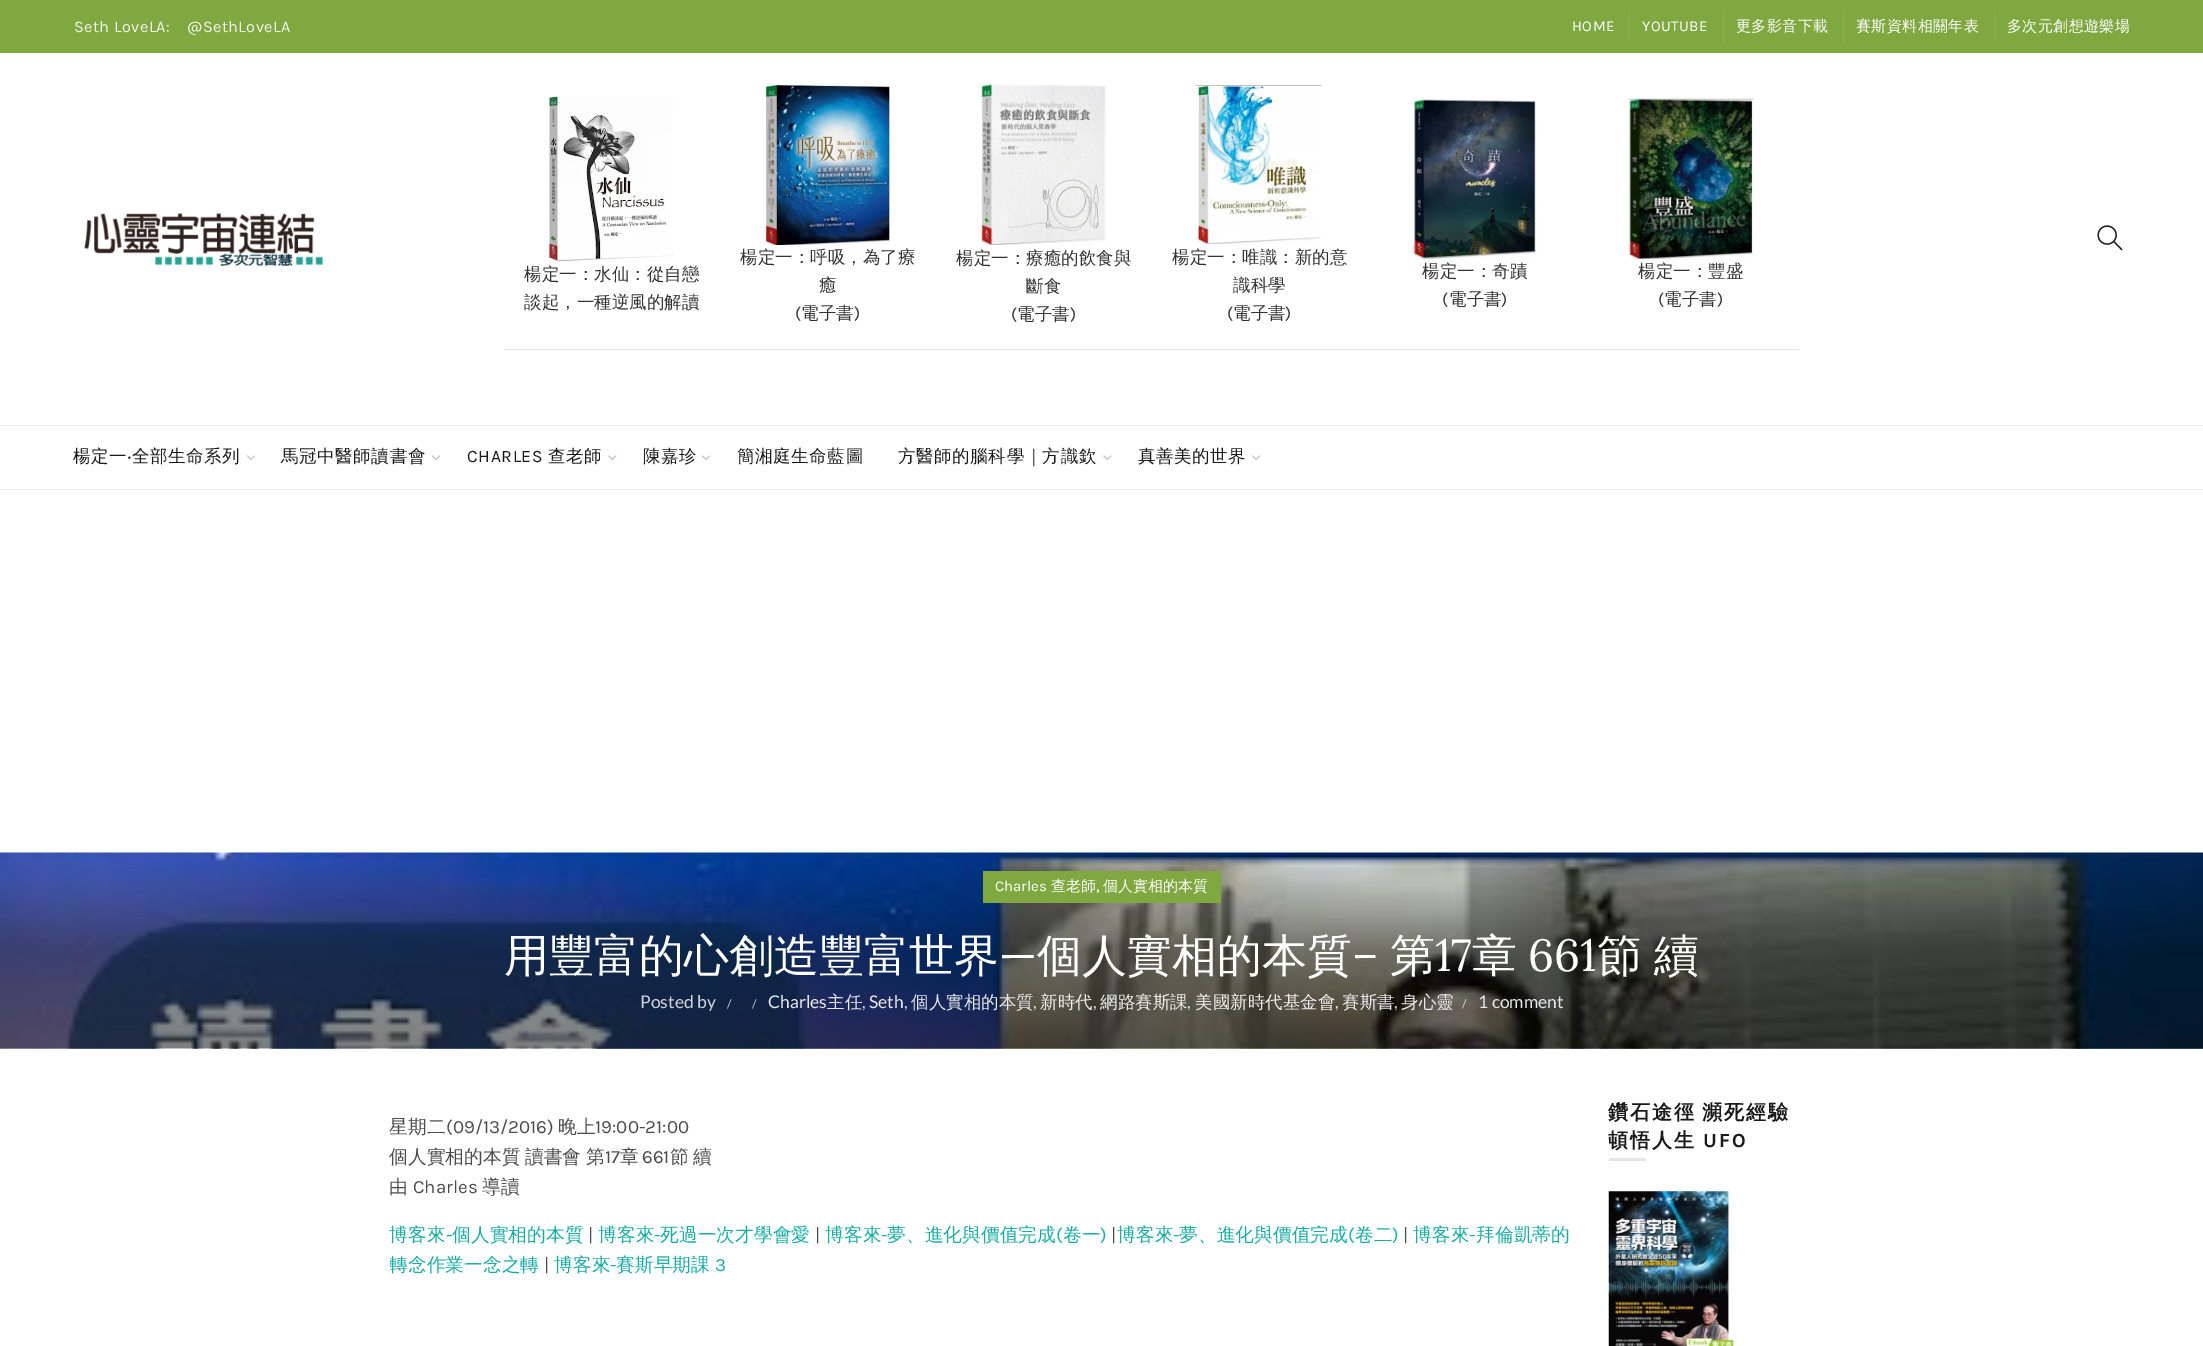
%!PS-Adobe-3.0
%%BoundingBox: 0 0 2203 1346
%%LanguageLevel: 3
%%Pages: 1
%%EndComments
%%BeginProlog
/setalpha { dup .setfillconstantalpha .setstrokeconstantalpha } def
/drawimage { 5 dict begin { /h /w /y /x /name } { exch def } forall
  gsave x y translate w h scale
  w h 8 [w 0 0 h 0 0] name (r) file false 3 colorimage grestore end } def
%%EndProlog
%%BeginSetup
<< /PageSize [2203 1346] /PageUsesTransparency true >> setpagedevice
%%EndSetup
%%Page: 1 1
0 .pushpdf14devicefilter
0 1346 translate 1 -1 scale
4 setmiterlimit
1 setgray
0 0 2203 1346 rectfill
0.498 0.659 0.255 setrgbcolor
0 0 2203 53 rectfill
0.549 0.694 0.329 setrgbcolor
1629 11 1 32 rectfill
1723 11 1 32 rectfill
1843 11 1 32 rectfill
1994 11 1 32 rectfill
(images/1.raw) 84 213 240 53 drawimage
(images/2.raw) 2097 225 26 26 drawimage
(images/3.raw) 548 96 125 166 drawimage
(images/4.raw) 765 85 125 160 drawimage
(images/5.raw) 981 84 125 161 drawimage
(images/6.raw) 1196 85 126 159 drawimage
(images/7.raw) 1412 99 125 160 drawimage
0.902 setgray
504 349 1295 1 rectfill
(images/8.raw) 1628 98 126 161 drawimage
0.933 setgray
0 425 2203 1 rectfill
0 489 2203 1 rectfill
(images/9.raw) 247 455 8 5 drawimage
(images/9.raw) 432 455 8 5 drawimage
(images/10.raw) 608 455 9 6 drawimage
(images/9.raw) 702 455 8 5 drawimage
(images/10.raw) 1103 455 9 6 drawimage
(images/9.raw) 1252 455 8 5 drawimage
(images/11.raw) 0 852 2203 197 drawimage
0.15 setalpha
0.659 setgray
0 1048 2203 1 rectfill
1 setalpha
0.498 0.659 0.255 setrgbcolor
983 871 238 32 rectfill
0.902 setgray
1609 1158 37 3 rectfill
(images/12.raw) 1608 1191 126 155 drawimage
/Karla-Regular [16.25 0 0 -16.25 0 0] selectfont
0.949 0.965 0.925 setrgbcolor
74 32 moveto 0.4 0 (Seth LoveLA:) ashow
187 32 moveto 0.4 0 (@SethLoveLA) ashow
/Karla-Regular [15 0 0 -15 0 0] selectfont
1 setgray
1572 31 moveto 0.4 0 (HOME) ashow
1642 31 moveto 0.4 0 (YOUTUBE) ashow
/WenQuanYiZenHei-Medium [15 0 0 -15 0 0] selectfont
1736 31 moveto 0.4 0 (更多影音下載) ashow
1856 31 moveto 0.4 0 (賽斯資料相關年表) ashow
2007 31 moveto 0.4 0 (多次元創想遊樂場) ashow
/WenQuanYiZenHei-Medium [17.5 0 0 -17.5 0 0] selectfont
0.2 setgray
524 280 moveto (楊定一：水仙：從自戀) show
524 308 moveto (談起，一種逆風的解讀) show
740 263 moveto (楊定一：呼吸，為了療) show
819 291 moveto (癒) show
/Karla-Regular [17.5 0 0 -17.5 0 0] selectfont
795 319 moveto (\() show
/WenQuanYiZenHei-Medium [17.5 0 0 -17.5 0 0] selectfont
801 319 moveto (電子書) show
/Karla-Regular [17.5 0 0 -17.5 0 0] selectfont
854 319 moveto (\)) show
/WenQuanYiZenHei-Medium [17.5 0 0 -17.5 0 0] selectfont
956 264 moveto (楊定一：療癒的飲食與) show
1026 292 moveto (斷食) show
/Karla-Regular [17.5 0 0 -17.5 0 0] selectfont
1011 320 moveto (\() show
/WenQuanYiZenHei-Medium [17.5 0 0 -17.5 0 0] selectfont
1017 320 moveto (電子書) show
/Karla-Regular [17.5 0 0 -17.5 0 0] selectfont
1070 320 moveto (\)) show
/WenQuanYiZenHei-Medium [17.5 0 0 -17.5 0 0] selectfont
1172 263 moveto (楊定一：唯識：新的意) show
1233 291 moveto (識科學) show
/Karla-Regular [17.5 0 0 -17.5 0 0] selectfont
1227 319 moveto (\() show
/WenQuanYiZenHei-Medium [17.5 0 0 -17.5 0 0] selectfont
1233 319 moveto (電子書) show
/Karla-Regular [17.5 0 0 -17.5 0 0] selectfont
1285 319 moveto (\)) show
/WenQuanYiZenHei-Medium [17.5 0 0 -17.5 0 0] selectfont
1422 277 moveto (楊定一：奇蹟) show
/Karla-Regular [17.5 0 0 -17.5 0 0] selectfont
1442 305 moveto (\() show
/WenQuanYiZenHei-Medium [17.5 0 0 -17.5 0 0] selectfont
1449 305 moveto (電子書) show
/Karla-Regular [17.5 0 0 -17.5 0 0] selectfont
1501 305 moveto (\)) show
/WenQuanYiZenHei-Medium [17.5 0 0 -17.5 0 0] selectfont
1638 277 moveto (楊定一：豐盛) show
/Karla-Regular [17.5 0 0 -17.5 0 0] selectfont
1658 305 moveto (\() show
/WenQuanYiZenHei-Medium [17.5 0 0 -17.5 0 0] selectfont
1664 305 moveto (電子書) show
/Karla-Regular [17.5 0 0 -17.5 0 0] selectfont
1717 305 moveto (\)) show
/WenQuanYiZenHei-Medium [17.5 0 0 -17.5 0 0] selectfont
0.102 setgray
73 462 moveto 0.6 0 (楊定一) ashow
/NotoSans-Regular [17.5 0 0 -17.5 0 0] selectfont
127 462 moveto 0.6 0 (‧) ashow
/WenQuanYiZenHei-Medium [17.5 0 0 -17.5 0 0] selectfont
132 462 moveto 0.6 0 (全部生命系列) ashow
281 462 moveto 0.6 0 (馬冠中醫師讀書會) ashow
/Karla-Regular [17.5 0 0 -17.5 0 0] selectfont
467 462 moveto 0.6 0 (CHARLES) ashow
/WenQuanYiZenHei-Medium [17.5 0 0 -17.5 0 0] selectfont
548 462 moveto 0.6 0 (查老師) ashow
643 462 moveto 0.6 0 (陳嘉珍) ashow
737 462 moveto 0.6 0 (簡湘庭生命藍圖) ashow
898 462 moveto 0.6 0 (方醫師的腦科學｜方識欽) ashow
1138 462 moveto 0.6 0 (真善美的世界) ashow
/Karla-Regular [15 0 0 -15 0 0] selectfont
1 setgray
995 891 moveto (Charles) show
/WenQuanYiZenHei-Medium [15 0 0 -15 0 0] selectfont
1051 891 moveto (查老師) show
/Karla-Regular [17.5 0 0 -17.5 0 0] selectfont
1096 891 moveto (,) show
/WenQuanYiZenHei-Medium [15 0 0 -15 0 0] selectfont
1103 891 moveto (個人實相的本質) show
/WenQuanYiZenHei-Medium [45 0 0 -45 0 0] selectfont
504 971 moveto (用豐富的心創造豐富世界) show
/Lora-Regular [45 0 0 -45 0 0] selectfont
999 971 moveto (—) show
/WenQuanYiZenHei-Medium [45 0 0 -45 0 0] selectfont
1037 971 moveto (個人實相的本質) show
/Lora-Regular [45 0 0 -45 0 0] selectfont
1352 971 moveto (–) show
/WenQuanYiZenHei-Medium [45 0 0 -45 0 0] selectfont
1390 971 moveto (第) show
/Lora-Regular [45 0 0 -45 0 0] selectfont
1435 971 moveto (17) show
/WenQuanYiZenHei-Medium [45 0 0 -45 0 0] selectfont
1472 971 moveto (章) show
/Lora-Regular [45 0 0 -45 0 0] selectfont
1528 971 moveto (661) show
/WenQuanYiZenHei-Medium [45 0 0 -45 0 0] selectfont
1597 971 moveto -1 0 32 (節 續) widthshow
/Lato-Regular [17.5 0 0 -17.5 0 0] selectfont
0.812 0.827 0.855 setrgbcolor
640 1008 moveto (Posted by) show
/Lato-Regular [12 0 0 -12 0 0] selectfont
727 1008 moveto (/) show
752 1008 moveto (/) show
/Lato-Regular [17.5 0 0 -17.5 0 0] selectfont
0.91 0.914 0.929 setrgbcolor
768 1008 moveto (Charles) show
/WenQuanYiZenHei-Medium [17.5 0 0 -17.5 0 0] selectfont
827 1008 moveto (主任) show
/Lato-Regular [17.5 0 0 -17.5 0 0] selectfont
0.812 0.827 0.855 setrgbcolor
862 1008 moveto (,) show
0.91 0.914 0.929 setrgbcolor
869 1008 moveto (Seth) show
0.812 0.827 0.855 setrgbcolor
904 1008 moveto (,) show
/WenQuanYiZenHei-Medium [17.5 0 0 -17.5 0 0] selectfont
0.91 0.914 0.929 setrgbcolor
911 1008 moveto (個人實相的本質) show
/Lato-Regular [17.5 0 0 -17.5 0 0] selectfont
0.867 0.863 0.851 setrgbcolor
1033 1008 moveto (,) show
/WenQuanYiZenHei-Medium [17.5 0 0 -17.5 0 0] selectfont
0.933 0.933 0.925 setrgbcolor
1040 1008 moveto (新時代) show
/Lato-Regular [17.5 0 0 -17.5 0 0] selectfont
0.843 0.843 0.839 setrgbcolor
1093 1008 moveto (,) show
/WenQuanYiZenHei-Medium [17.5 0 0 -17.5 0 0] selectfont
0.933 0.933 0.925 setrgbcolor
1100 1008 moveto (網路賽斯課) show
/Lato-Regular [17.5 0 0 -17.5 0 0] selectfont
0.867 0.863 0.851 setrgbcolor
1187 1008 moveto (,) show
/WenQuanYiZenHei-Medium [17.5 0 0 -17.5 0 0] selectfont
0.933 0.933 0.925 setrgbcolor
1195 1008 moveto (美國新時代基金會) show
/Lato-Regular [17.5 0 0 -17.5 0 0] selectfont
0.867 0.863 0.851 setrgbcolor
1335 1008 moveto (,) show
/WenQuanYiZenHei-Medium [17.5 0 0 -17.5 0 0] selectfont
0.91 0.914 0.929 setrgbcolor
1342 1008 moveto (賽斯書) show
/Lato-Regular [17.5 0 0 -17.5 0 0] selectfont
0.816 0.812 0.804 setrgbcolor
1394 1008 moveto (,) show
/WenQuanYiZenHei-Medium [17.5 0 0 -17.5 0 0] selectfont
0.91 0.914 0.929 setrgbcolor
1401 1008 moveto (身心靈) show
/Lato-Regular [12 0 0 -12 0 0] selectfont
0.867 0.863 0.851 setrgbcolor
1462 1008 moveto (/) show
/Lato-Regular [17.5 0 0 -17.5 0 0] selectfont
0.91 0.914 0.929 setrgbcolor
1478 1008 moveto (1 comment) show
/WenQuanYiZenHei-Medium [18.75 0 0 -18.75 0 0] selectfont
0.298 setgray
389 1133 moveto (星期二) show
/Karla-Regular [18.75 0 0 -18.75 0 0] selectfont
446 1133 moveto (\(09/13/2016\)) show
/WenQuanYiZenHei-Medium [18.75 0 0 -18.75 0 0] selectfont
558 1133 moveto (晚上) show
/Karla-Regular [18.75 0 0 -18.75 0 0] selectfont
595 1133 moveto (19:00-21:00) show
/WenQuanYiZenHei-Medium [18.75 0 0 -18.75 0 0] selectfont
389 1163 moveto -1 0 32 (個人實相的本質 讀書會 第) widthshow
/Karla-Regular [18.75 0 0 -18.75 0 0] selectfont
605 1163 moveto (17) show
/WenQuanYiZenHei-Medium [18.75 0 0 -18.75 0 0] selectfont
620 1163 moveto (章) show
/Karla-Regular [18.75 0 0 -18.75 0 0] selectfont
642 1163 moveto (661) show
/WenQuanYiZenHei-Medium [18.75 0 0 -18.75 0 0] selectfont
670 1163 moveto -1 0 32 (節 續) widthshow
389 1193 moveto (由) show
/Karla-Regular [18.75 0 0 -18.75 0 0] selectfont
413 1193 moveto (Charles) show
/WenQuanYiZenHei-Medium [18.75 0 0 -18.75 0 0] selectfont
482 1193 moveto (導讀) show
0.102 0.678 0.639 setrgbcolor
389 1241 moveto (博客來) show
/Karla-Regular [18.75 0 0 -18.75 0 0] selectfont
446 1241 moveto (-) show
/WenQuanYiZenHei-Medium [18.75 0 0 -18.75 0 0] selectfont
452 1241 moveto (個人實相的本質) show
/Karla-Regular [18.75 0 0 -18.75 0 0] selectfont
0.298 setgray
588 1241 moveto (|) show
/WenQuanYiZenHei-Medium [18.75 0 0 -18.75 0 0] selectfont
0.102 0.678 0.639 setrgbcolor
598 1241 moveto (博客來) show
/Karla-Regular [18.75 0 0 -18.75 0 0] selectfont
654 1241 moveto (-) show
/WenQuanYiZenHei-Medium [18.75 0 0 -18.75 0 0] selectfont
660 1241 moveto (死過一次才學會愛) show
/Karla-Regular [18.75 0 0 -18.75 0 0] selectfont
0.298 setgray
815 1241 moveto (|) show
/WenQuanYiZenHei-Medium [18.75 0 0 -18.75 0 0] selectfont
0.102 0.678 0.639 setrgbcolor
825 1241 moveto (博客來) show
/Karla-Regular [18.75 0 0 -18.75 0 0] selectfont
881 1241 moveto (-) show
/WenQuanYiZenHei-Medium [18.75 0 0 -18.75 0 0] selectfont
887 1241 moveto (夢、進化與價值完成) show
/Karla-Regular [18.75 0 0 -18.75 0 0] selectfont
1056 1241 moveto (\() show
/WenQuanYiZenHei-Medium [18.75 0 0 -18.75 0 0] selectfont
1063 1241 moveto (卷一) show
/Karla-Regular [18.75 0 0 -18.75 0 0] selectfont
1100 1241 moveto (\)) show
0.298 setgray
1111 1241 moveto (|) show
/WenQuanYiZenHei-Medium [18.75 0 0 -18.75 0 0] selectfont
0.102 0.678 0.639 setrgbcolor
1117 1241 moveto (博客來) show
/Karla-Regular [18.75 0 0 -18.75 0 0] selectfont
1173 1241 moveto (-) show
/WenQuanYiZenHei-Medium [18.75 0 0 -18.75 0 0] selectfont
1179 1241 moveto (夢、進化與價值完成) show
/Karla-Regular [18.75 0 0 -18.75 0 0] selectfont
1348 1241 moveto (\() show
/WenQuanYiZenHei-Medium [18.75 0 0 -18.75 0 0] selectfont
1355 1241 moveto (卷二) show
/Karla-Regular [18.75 0 0 -18.75 0 0] selectfont
1392 1241 moveto (\)) show
0.298 setgray
1403 1241 moveto (|) show
/WenQuanYiZenHei-Medium [18.75 0 0 -18.75 0 0] selectfont
0.102 0.678 0.639 setrgbcolor
1413 1241 moveto (博客來) show
/Karla-Regular [18.75 0 0 -18.75 0 0] selectfont
1469 1241 moveto (-) show
/WenQuanYiZenHei-Medium [18.75 0 0 -18.75 0 0] selectfont
1476 1241 moveto (拜倫凱蒂的) show
gsave
390 1220 1181 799 rectclip
389 1271 moveto (轉念作業一念之轉) show
grestore
/Karla-Regular [18.75 0 0 -18.75 0 0] selectfont
0.298 setgray
544 1271 moveto (|) show
/WenQuanYiZenHei-Medium [18.75 0 0 -18.75 0 0] selectfont
0.102 0.678 0.639 setrgbcolor
554 1271 moveto (博客來) show
/Karla-Regular [18.75 0 0 -18.75 0 0] selectfont
610 1271 moveto (-) show
/WenQuanYiZenHei-Medium [18.75 0 0 -18.75 0 0] selectfont
616 1271 moveto (賽斯早期課) show
/Karla-Regular [18.75 0 0 -18.75 0 0] selectfont
715 1271 moveto (3) show
/WenQuanYiZenHei-Bold [20 0 0 -20 0 0] selectfont
0.102 setgray
1608 1119 moveto -1 0 32 1.9 0 (鑽石途徑 瀕死經驗) awidthshow
1608 1147 moveto 1.9 0 (頓悟人生) ashow
/Karla-Bold [20 0 0 -20 0 0] selectfont
1703 1147 moveto 1.9 0 (UFO) ashow
.poppdf14devicefilter showpage
%%EOF
